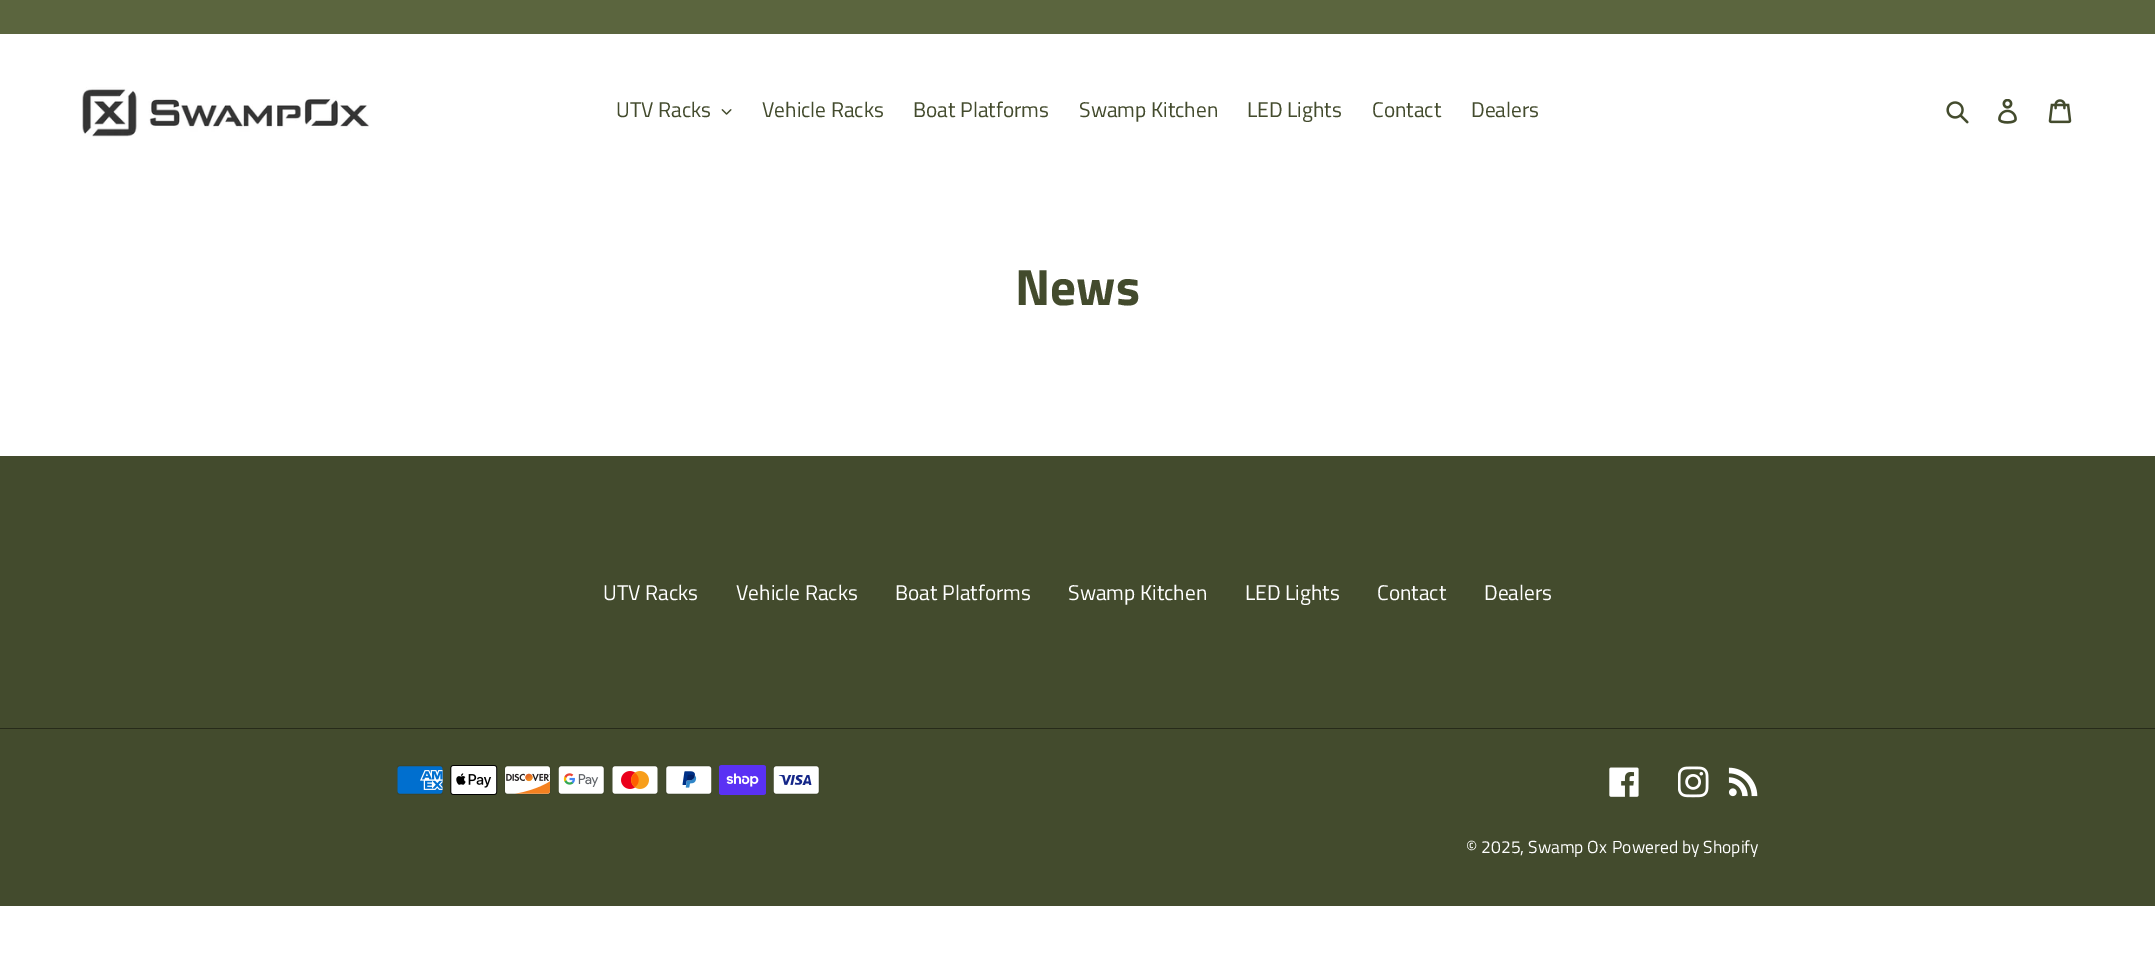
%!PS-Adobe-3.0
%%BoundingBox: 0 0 2155 956
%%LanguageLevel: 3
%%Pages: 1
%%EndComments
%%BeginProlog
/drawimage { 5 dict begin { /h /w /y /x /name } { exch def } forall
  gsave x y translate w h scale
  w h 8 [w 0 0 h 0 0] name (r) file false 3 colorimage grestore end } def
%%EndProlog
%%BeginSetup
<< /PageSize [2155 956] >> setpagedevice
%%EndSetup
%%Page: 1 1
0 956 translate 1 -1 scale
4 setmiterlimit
1 setgray
0 0 2155 956 rectfill
0.357 0.396 0.243 setrgbcolor
0 0 2155 34 rectfill
(images/1.raw) 82 87 288 50 drawimage
(images/2.raw) 721 109 11 6 drawimage
(images/3.raw) 1946 101 23 23 drawimage
(images/4.raw) 1998 99 19 25 drawimage
(images/5.raw) 2048 99 24 25 drawimage
0.263 0.294 0.176 setrgbcolor
0 456 2155 450 rectfill
0.153 0.169 0.102 setrgbcolor
0 728 2155 1 rectfill
(images/6.raw) 397 765 46 30 drawimage
(images/7.raw) 450 765 48 30 drawimage
(images/8.raw) 504 765 47 30 drawimage
(images/9.raw) 558 765 47 30 drawimage
(images/10.raw) 612 765 46 30 drawimage
(images/11.raw) 665 765 47 30 drawimage
(images/12.raw) 719 765 47 30 drawimage
(images/13.raw) 773 765 47 30 drawimage
(images/14.raw) 1609 767 30 30 drawimage
(images/15.raw) 1678 766 31 32 drawimage
(images/16.raw) 1728 767 30 30 drawimage
/TitilliumWeb-Regular [21.25 0 0 -21.25 0 0] selectfont
0.263 0.294 0.176 setrgbcolor
616 117 moveto (UTV Racks) show
762 117 moveto (Vehicle Racks) show
913 117 moveto (Boat Platforms) show
1079 117 moveto (Swamp Kitchen) show
1247 117 moveto (LED Lights) show
1372 117 moveto (Contact) show
1471 117 moveto (Dealers) show
/TitilliumWeb-Bold [51 0 0 -51 0 0] selectfont
1015 305 moveto (News) show
/TitilliumWeb-Regular [21.25 0 0 -21.25 0 0] selectfont
1 setgray
603 600 moveto (UTV Racks) show
736 600 moveto (Vehicle Racks) show
895 600 moveto (Boat Platforms) show
1068 600 moveto (Swamp Kitchen) show
1245 600 moveto (LED Lights) show
1377 600 moveto (Contact) show
1484 600 moveto (Dealers) show
/TitilliumWeb-Regular [17.5 0 0 -17.5 0 0] selectfont
1466 853 moveto (© 2025, Swamp Ox) show
1612 853 moveto (Powered by Shopify) show
showpage
%%EOF
